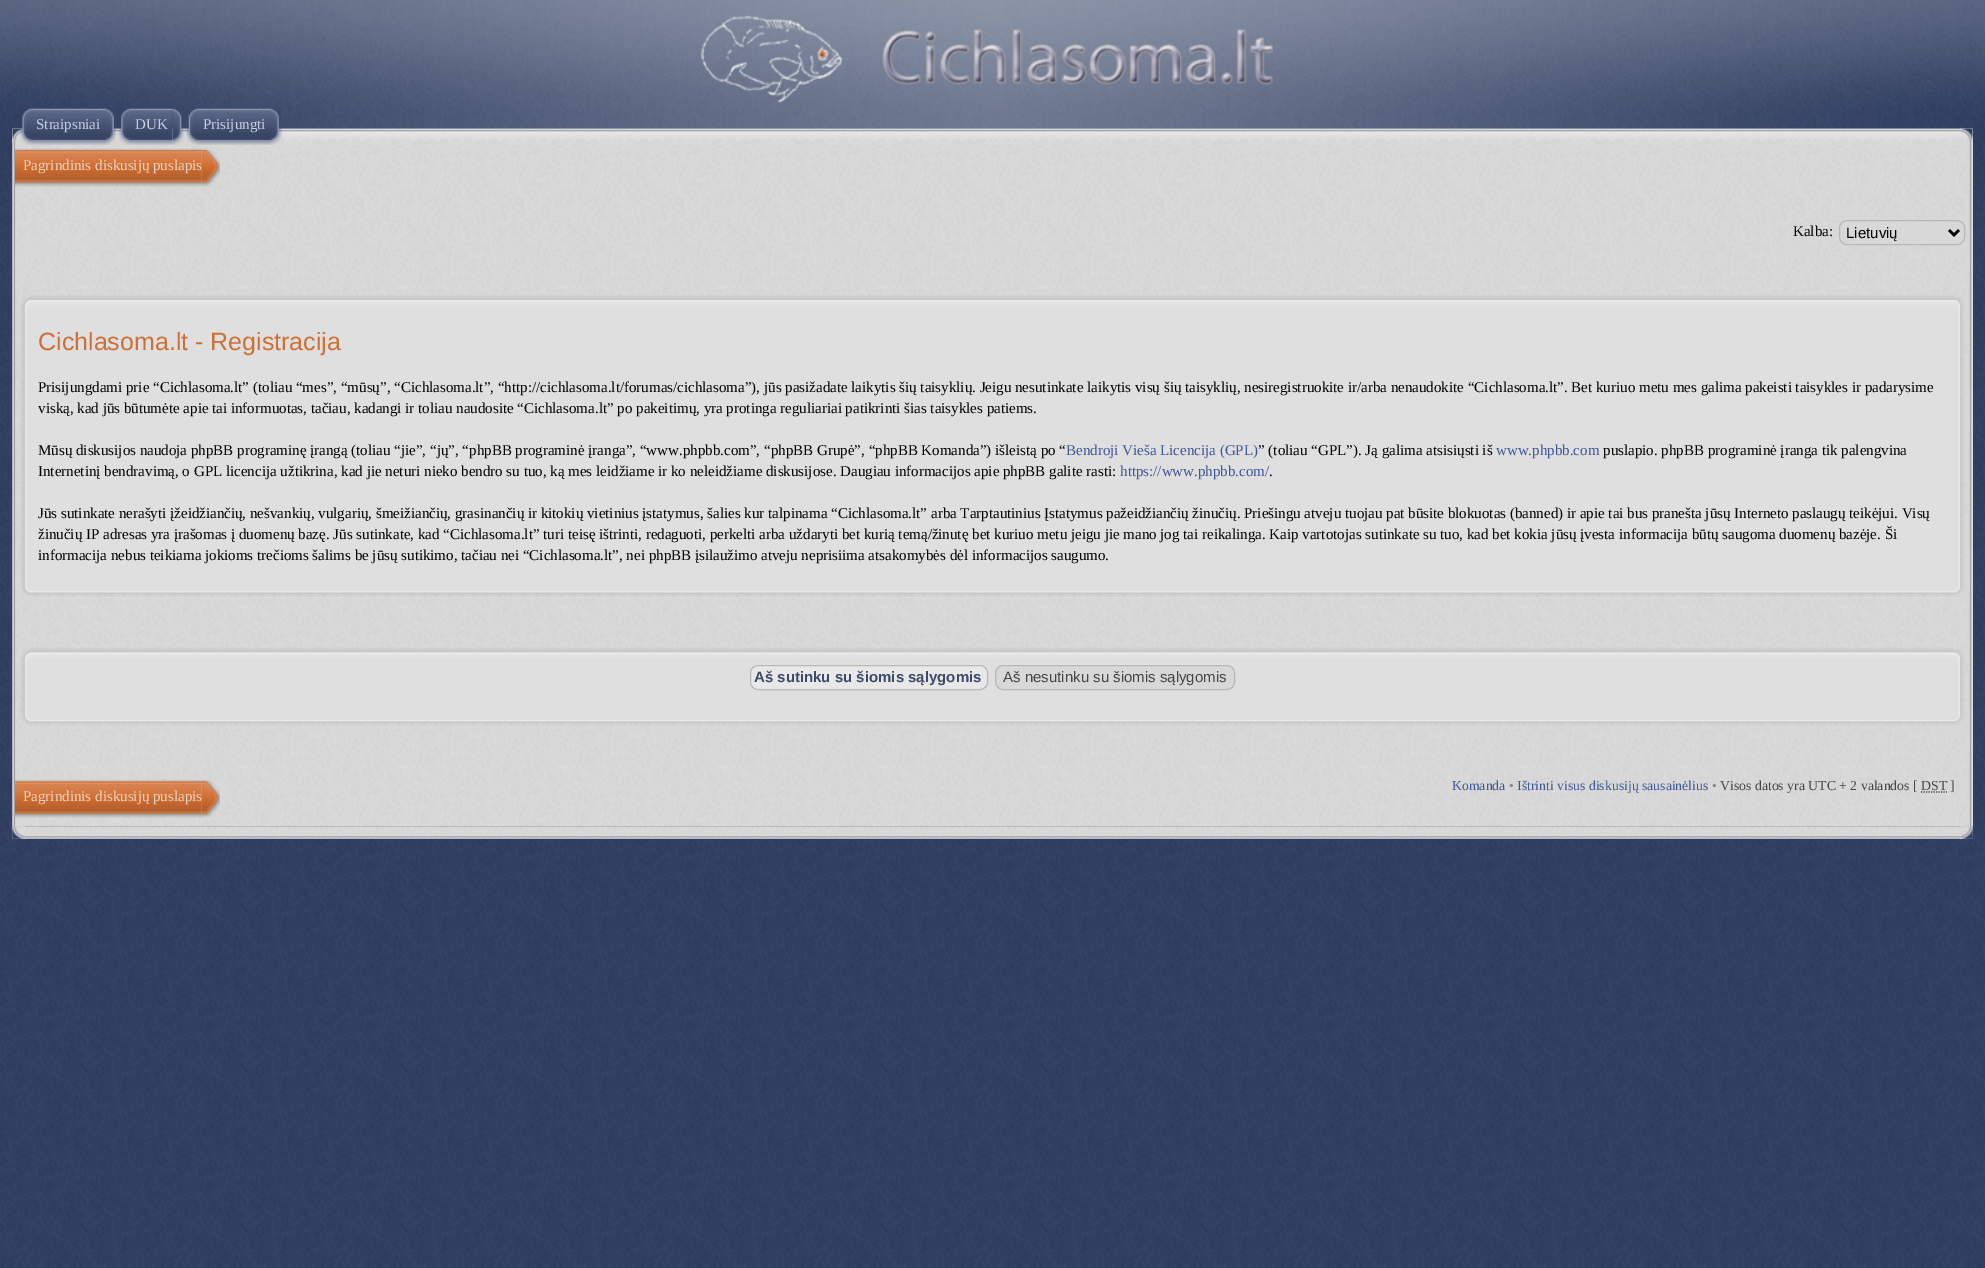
%!PS-Adobe-3.0
%%BoundingBox: 0 0 1985 1268
%%LanguageLevel: 3
%%Pages: 1
%%EndComments
%%BeginProlog
/rrect { 5 dict begin { /r /h /w /y /x } { exch def } forall
  x r add y moveto x w add y 2 copy h add r arct x w add y h add x 1 index r arct
  x y h add x y r arct x y 2 copy exch w add exch r arct closepath end } def
/drawimage { 5 dict begin { /h /w /y /x /name } { exch def } forall
  gsave x y translate w h scale
  w h 8 [w 0 0 h 0 0] name (r) file false 3 colorimage grestore end } def
%%EndProlog
%%BeginSetup
<< /PageSize [1985 1268] >> setpagedevice
%%EndSetup
%%Page: 1 1
0 1268 translate 1 -1 scale
4 setmiterlimit
1 setgray
0 0 1985 1268 rectfill
(images/1.raw) 0 0 1985 1268 drawimage
(images/2.raw) 0 0 1985 129 drawimage
(images/3.raw) 700 15 573 88 drawimage
(images/4.raw) 12 128 1961 17 drawimage
(images/5.raw) 19 108 86 37 drawimage
(images/6.raw) 105 108 13 37 drawimage
(images/7.raw) 117 108 56 37 drawimage
(images/8.raw) 172 108 13 37 drawimage
(images/9.raw) 185 108 85 37 drawimage
(images/10.raw) 270 108 13 37 drawimage
(images/11.raw) 12 145 1961 682 drawimage
(images/12.raw) 201 148 19 39 drawimage
(images/13.raw) 15 148 187 39 drawimage
0.847 setgray
1839.5 220.5 125 24 7.5 rrect gsave fill grestore
0.722 setgray
stroke
0 setgray
2.5 setlinewidth
newpath 1949 230 moveto 1954 235 lineto 1959 230 lineto stroke
0.875 setgray
20 304 1945 294 rectfill
(images/14.raw) 20 295 1945 303 drawimage
27 657 1931 63 rectfill
(images/15.raw) 20 647 1945 79 drawimage
0.91 setgray
750.5 665.5 237 24 7.5 rrect gsave fill grestore
0.722 setgray
1 setlinewidth
stroke
0.847 setgray
995.5 665.5 239 24 7.5 rrect gsave fill grestore
0.722 setgray
stroke
0.267 setgray
1.2 setlinewidth
[1.25 1.25] 0 setdash
newpath 1921 792 moveto 1947 792 lineto stroke
(images/16.raw) 201 779 19 39 drawimage
(images/17.raw) 15 779 187 39 drawimage
(images/18.raw) 12 826 1961 13 drawimage
/LiberationSerif-Regular [15 0 0 -15 0 0] selectfont
0.784 0.816 0.886 setrgbcolor
36 129 moveto (Straipsniai) show
135 129 moveto (DUK) show
203 129 moveto (Prisijungti) show
0.941 0.831 0.761 setrgbcolor
23 170 moveto (Pagrindinis diskusijų puslapis) show
0 setgray
1793 236 moveto (Kalba:) show
/LiberationSans-Regular [15 0 0 -15 0 0] selectfont
1846 238 moveto (Lietuvių) show
/LiberationSans-Regular [25 0 0 -25 0 0] selectfont
0.808 0.435 0.212 setrgbcolor
38 350 moveto (Cichlasoma.lt - Registracija) show
/LiberationSerif-Regular [15 0 0 -15 0 0] selectfont
0 setgray
38 392 moveto (Prisijungdami prie “Cichlasoma.lt” \(toliau “mes”, “mūsų”, “Cichlasoma.lt”, “http://cichlasoma.lt/forumas/cichlasoma”\), jūs pasižadate laikytis šių taisyklių. Jeigu nesutinkate laikytis visų šių taisyklių, nesiregistruokite ir/arba nenaudokite “Cichlasoma.lt”. Bet kuriuo metu mes galima pakeisti taisykles ir padarysime) show
38 413 moveto (viską, kad jūs būtumėte apie tai informuotas, tačiau, kadangi ir toliau naudosite “Cichlasoma.lt” po pakeitimų, yra protinga reguliariai patikrinti šias taisykles patiems.) show
38 455 moveto (Mūsų diskusijos naudoja phpBB programinę įrangą \(toliau “jie”, “jų”, “phpBB programinė įranga”, “www.phpbb.com”, “phpBB Grupė”, “phpBB Komanda”\) išleistą po “) show
0.243 0.341 0.584 setrgbcolor
1066 455 moveto (Bendroji Vieša Licencija \(GPL\)) show
0 setgray
1258 455 moveto (” \(toliau “GPL”\). Ją galima atsisiųsti iš) show
0.243 0.341 0.584 setrgbcolor
1496 455 moveto (www.phpbb.com) show
0 setgray
1603 455 moveto (puslapio. phpBB programinė įranga tik palengvina) show
38 476 moveto (Internetinį bendravimą, o GPL licencija užtikrina, kad jie neturi nieko bendro su tuo, ką mes leidžiame ir ko neleidžiame diskusijose. Daugiau informacijos apie phpBB galite rasti:) show
0.243 0.341 0.584 setrgbcolor
1120 476 moveto (https://www.phpbb.com/) show
0 setgray
1269 476 moveto (.) show
38 518 moveto (Jūs sutinkate nerašyti įžeidžiančių, nešvankių, vulgarių, šmeižiančių, grasinančių ir kitokių vietinius įstatymus, šalies kur talpinama “Cichlasoma.lt” arba Tarptautinius Įstatymus pažeidžiančių žinučių. Priešingu atveju tuojau pat būsite blokuotas \(banned\) ir apie tai bus pranešta jūsų Interneto paslaugų teikėjui. Visų) show
38 539 moveto (žinučių IP adresas yra įrašomas į duomenų bazę. Jūs sutinkate, kad “Cichlasoma.lt” turi teisę ištrinti, redaguoti, perkelti arba uždaryti bet kurią temą/žinutę bet kuriuo metu jeigu jie mano jog tai reikalinga. Kaip vartotojas sutinkate su tuo, kad bet kokia jūsų įvesta informacija būtų saugoma duomenų bazėje. Ši) show
38 560 moveto (informacija nebus teikiama jokioms trečioms šalims be jūsų sutikimo, tačiau nei “Cichlasoma.lt”, nei phpBB įsilaužimo atveju neprisiima atsakomybės dėl informacijos saugumo.) show
/LiberationSans-Bold [15 0 0 -15 0 0] selectfont
0.239 0.29 0.416 setrgbcolor
754 682 moveto (Aš sutinku su šiomis sąlygomis) show
/LiberationSans-Regular [15 0 0 -15 0 0] selectfont
0.267 setgray
1003 682 moveto (Aš nesutinku su šiomis sąlygomis) show
/LiberationSerif-Regular [13.75 0 0 -13.75 0 0] selectfont
0.243 0.341 0.584 setrgbcolor
1452 790 moveto (Komanda) show
0.533 setgray
1509 790 moveto (•) show
0.243 0.341 0.584 setrgbcolor
1517 790 moveto (Ištrinti visus diskusijų sausainėlius) show
0.533 setgray
1712 790 moveto (•) show
0.267 setgray
1720 790 moveto (Visos datos yra UTC + 2 valandos [ DST ]) show
/LiberationSerif-Regular [15 0 0 -15 0 0] selectfont
0.941 0.831 0.761 setrgbcolor
23 801 moveto (Pagrindinis diskusijų puslapis) show
showpage
%%EOF
